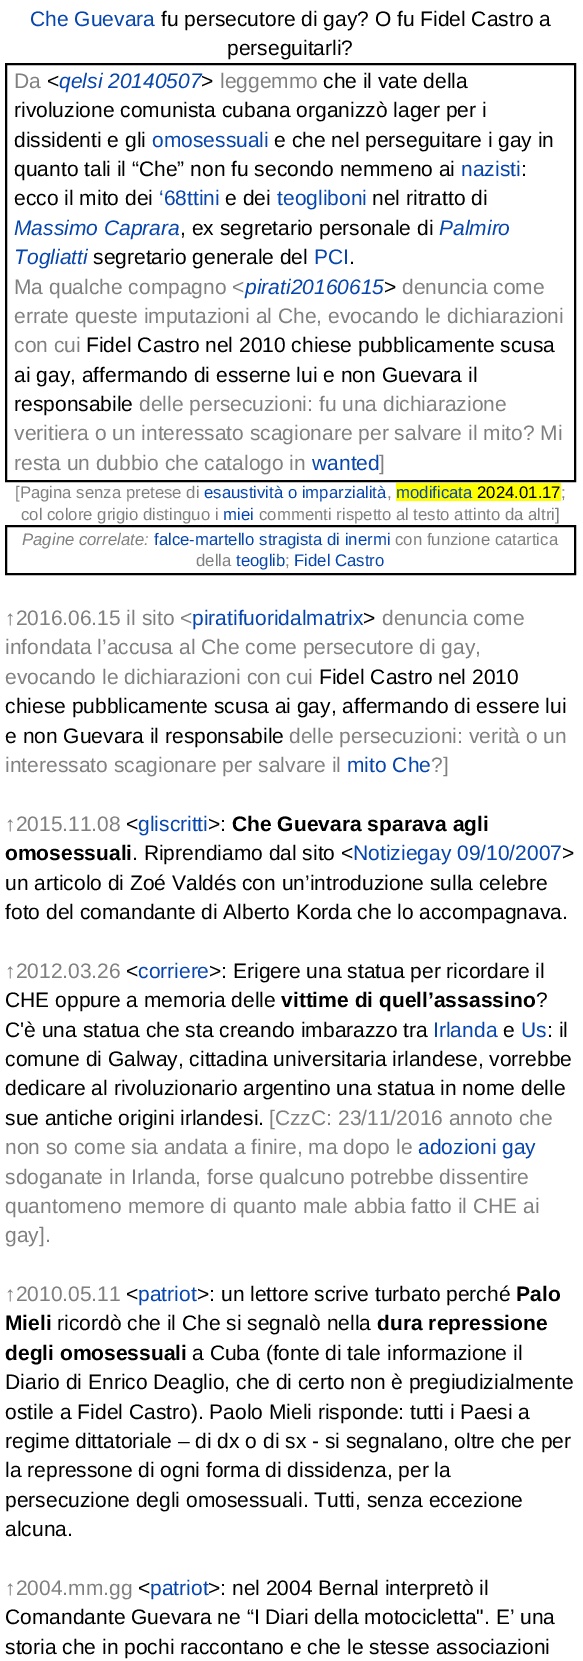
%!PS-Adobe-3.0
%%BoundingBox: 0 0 583 1661
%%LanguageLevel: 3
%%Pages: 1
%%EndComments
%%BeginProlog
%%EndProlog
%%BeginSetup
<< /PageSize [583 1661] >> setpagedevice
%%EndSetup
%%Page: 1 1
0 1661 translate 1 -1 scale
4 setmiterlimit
1 setgray
0 0 583 1661 rectfill
0 setgray
2 setlinewidth
6 64 569 417 rectstroke
1 1 0 setrgbcolor
396 483 165 18 rectfill
0 setgray
6 526 569 48 rectstroke
/LiberationSans-Regular [21 0 0 -21 0 0] selectfont
0.024 0.271 0.678 setrgbcolor
30 26 moveto (Che Guevara) show
0 setgray
161 26 moveto (fu persecutore di gay? O fu Fidel Castro a) show
227 55 moveto (perseguitarli?) show
0.502 setgray
14 88 moveto (Da) show
0 setgray
47 88 moveto (<) show
/LiberationSans-Italic [21 0 0 -21 0 0] selectfont
0.024 0.271 0.678 setrgbcolor
59 88 moveto (qelsi 20140507) show
/LiberationSans-Regular [21 0 0 -21 0 0] selectfont
0 setgray
201 88 moveto (>) show
0.502 setgray
220 88 moveto (leggemmo) show
0 setgray
323 88 moveto (che il vate della) show
14 117 moveto (rivoluzione comunista cubana organizzò lager per i) show
14 147 moveto (dissidenti e gli) show
0.024 0.271 0.678 setrgbcolor
152 147 moveto (omosessuali) show
0 setgray
274 147 moveto (e che nel perseguitare i gay in) show
14 176 moveto (quanto tali il “Che” non fu secondo nemmeno ai) show
0.024 0.271 0.678 setrgbcolor
461 176 moveto (nazisti) show
0 setgray
521 176 moveto (:) show
14 205 moveto (ecco il mito dei) show
0.024 0.271 0.678 setrgbcolor
159 205 moveto (‘68ttini) show
0 setgray
225 205 moveto (e dei) show
0.024 0.271 0.678 setrgbcolor
277 205 moveto (teogliboni) show
0 setgray
372 205 moveto (nel ritratto di) show
/LiberationSans-Italic [21 0 0 -21 0 0] selectfont
0.024 0.271 0.678 setrgbcolor
14 235 moveto (Massimo Caprara) show
/LiberationSans-Regular [21 0 0 -21 0 0] selectfont
0 setgray
180 235 moveto (, ex segretario personale di) show
/LiberationSans-Italic [21 0 0 -21 0 0] selectfont
0.024 0.271 0.678 setrgbcolor
439 235 moveto (Palmiro) show
14 264 moveto (Togliatti) show
/LiberationSans-Regular [21 0 0 -21 0 0] selectfont
0 setgray
93 264 moveto (segretario generale del) show
0.024 0.271 0.678 setrgbcolor
314 264 moveto (PCI) show
0 setgray
349 264 moveto (.) show
0.502 setgray
14 294 moveto (Ma qualche compagno <) show
/LiberationSans-Italic [21 0 0 -21 0 0] selectfont
0.024 0.271 0.678 setrgbcolor
245 294 moveto (pirati20160615) show
/LiberationSans-Regular [21 0 0 -21 0 0] selectfont
0 setgray
384 294 moveto (>) show
0.502 setgray
402 294 moveto (denuncia come) show
14 323 moveto (errate queste imputazioni al Che, evocando le dichiarazioni) show
14 352 moveto (con cui) show
0 setgray
86 352 moveto (Fidel Castro nel 2010 chiese pubblicamente scusa) show
14 382 moveto (ai gay, affermando di esserne lui e non Guevara il) show
14 411 moveto (responsabile) show
0.502 setgray
139 411 moveto (delle persecuzioni: fu una dichiarazione) show
14 440 moveto (veritiera o un interessato scagionare per salvare il mito? Mi) show
14 470 moveto (resta un dubbio che catalogo in) show
0.024 0.271 0.678 setrgbcolor
312 470 moveto (wanted) show
0.502 setgray
379 470 moveto (]) show
/LiberationSans-Regular [16.75 0 0 -16.75 0 0] selectfont
15 498 moveto ([Pagina senza pretese di) show
0.024 0.271 0.678 setrgbcolor
204 498 moveto (esaustività o imparzialità) show
0.502 setgray
387 498 moveto (,) show
0.024 0.271 0.678 setrgbcolor
396 498 moveto (modificata) show
0 setgray
477 498 moveto (2024.01.17) show
0.502 setgray
561 498 moveto (;) show
21 520 moveto (col colore grigio distinguo i) show
0.024 0.271 0.678 setrgbcolor
223 520 moveto (miei) show
0.502 setgray
259 520 moveto (commenti rispetto al testo attinto da altri]) show
/LiberationSans-Italic [16.75 0 0 -16.75 0 0] selectfont
22 545 moveto (Pagine correlate:) show
/LiberationSans-Regular [16.75 0 0 -16.75 0 0] selectfont
0.024 0.271 0.678 setrgbcolor
154 545 moveto (falce-martello stragista di inermi) show
0.502 setgray
395 545 moveto (con funzione catartica) show
196 566 moveto (della) show
0.024 0.271 0.678 setrgbcolor
236 566 moveto (teoglib) show
0.502 setgray
285 566 moveto (;) show
0.024 0.271 0.678 setrgbcolor
294 566 moveto (Fidel Castro) show
/LiberationSans-Regular [21 0 0 -21 0 0] selectfont
0.502 setgray
5 625 moveto (↑2016.06.15 il sito <) show
0.024 0.271 0.678 setrgbcolor
192 625 moveto (piratifuoridalmatrix) show
0 setgray
363 625 moveto (>) show
0.502 setgray
382 625 moveto (denuncia come) show
5 654 moveto (infondata l’accusa al Che come persecutore di gay,) show
5 684 moveto (evocando le dichiarazioni con cui) show
0 setgray
319 684 moveto (Fidel Castro nel 2010) show
5 713 moveto (chiese pubblicamente scusa ai gay, affermando di essere lui) show
5 743 moveto (e non Guevara il responsabile) show
0.502 setgray
289 743 moveto (delle persecuzioni: verità o un) show
5 772 moveto (interessato scagionare per salvare il) show
0.024 0.271 0.678 setrgbcolor
347 772 moveto (mito Che) show
0.502 setgray
431 772 moveto (?]) show
5 831 moveto (↑2015.11.08) show
0 setgray
126 831 moveto (<) show
0.024 0.271 0.678 setrgbcolor
138 831 moveto (gliscritti) show
0 setgray
208 831 moveto (>:) show
/LiberationSans-Bold [21 0 0 -21 0 0] selectfont
232 831 moveto (Che Guevara sparava agli) show
5 860 moveto (omosessuali) show
/LiberationSans-Regular [21 0 0 -21 0 0] selectfont
132 860 moveto (. Riprendiamo dal sito <) show
0.024 0.271 0.678 setrgbcolor
353 860 moveto (Notiziegay 09/10/2007) show
0 setgray
562 860 moveto (>) show
5 890 moveto (un articolo di Zoé Valdés con un’introduzione sulla celebre) show
5 919 moveto (foto del comandante di Alberto Korda che lo accompagnava.) show
0.502 setgray
5 978 moveto (↑2012.03.26) show
0 setgray
126 978 moveto (<) show
0.024 0.271 0.678 setrgbcolor
138 978 moveto (corriere) show
0 setgray
209 978 moveto (>: Erigere una statua per ricordare il) show
5 1007 moveto (CHE oppure a memoria delle) show
/LiberationSans-Bold [21 0 0 -21 0 0] selectfont
281 1007 moveto (vittime di quell’assassino) show
/LiberationSans-Regular [21 0 0 -21 0 0] selectfont
536 1007 moveto (?) show
5 1037 moveto (C'è una statua che sta creando imbarazzo tra) show
0.024 0.271 0.678 setrgbcolor
433 1037 moveto (Irlanda) show
0 setgray
503 1037 moveto (e) show
0.024 0.271 0.678 setrgbcolor
521 1037 moveto (Us) show
0 setgray
547 1037 moveto (: il) show
5 1066 moveto (comune di Galway, cittadina universitaria irlandese, vorrebbe) show
5 1095 moveto (dedicare al rivoluzionario argentino una statua in nome delle) show
5 1125 moveto (sue antiche origini irlandesi.) show
0.502 setgray
269 1125 moveto ([CzzC: 23/11/2016 annoto che) show
5 1154 moveto (non so come sia andata a finire, ma dopo le) show
0.024 0.271 0.678 setrgbcolor
418 1154 moveto (adozioni gay) show
0.502 setgray
5 1184 moveto (sdoganate in Irlanda, forse qualcuno potrebbe dissentire) show
5 1213 moveto (quantomeno memore di quanto male abbia fatto il CHE ai) show
5 1242 moveto (gay].) show
5 1301 moveto (↑2010.05.11) show
0 setgray
126 1301 moveto (<) show
0.024 0.271 0.678 setrgbcolor
138 1301 moveto (patriot) show
0 setgray
197 1301 moveto (>: un lettore scrive turbato perché) show
/LiberationSans-Bold [21 0 0 -21 0 0] selectfont
516 1301 moveto (Palo) show
5 1330 moveto (Mieli) show
/LiberationSans-Regular [21 0 0 -21 0 0] selectfont
57 1330 moveto (ricordò che il Che si segnalò nella) show
/LiberationSans-Bold [21 0 0 -21 0 0] selectfont
377 1330 moveto (dura repressione) show
5 1360 moveto (degli omosessuali) show
/LiberationSans-Regular [21 0 0 -21 0 0] selectfont
192 1360 moveto (a Cuba \(fonte di tale informazione il) show
5 1389 moveto (Diario di Enrico Deaglio, che di certo non è pregiudizialmente) show
5 1419 moveto (ostile a Fidel Castro\). Paolo Mieli risponde: tutti i Paesi a) show
5 1448 moveto (regime dittatoriale – di dx o di sx - si segnalano, oltre che per) show
5 1477 moveto (la repressone di ogni forma di dissidenza, per la) show
5 1507 moveto (persecuzione degli omosessuali. Tutti, senza eccezione) show
5 1536 moveto (alcuna.) show
0.502 setgray
5 1595 moveto (↑2004.mm.gg) show
0 setgray
138 1595 moveto (<) show
0.024 0.271 0.678 setrgbcolor
150 1595 moveto (patriot) show
0 setgray
208 1595 moveto (>: nel 2004 Bernal interpretò il) show
5 1624 moveto (Comandante Guevara ne “I Diari della motocicletta". E’ una) show
5 1654 moveto (storia che in pochi raccontano e che le stesse associazioni) show
showpage
%%EOF
